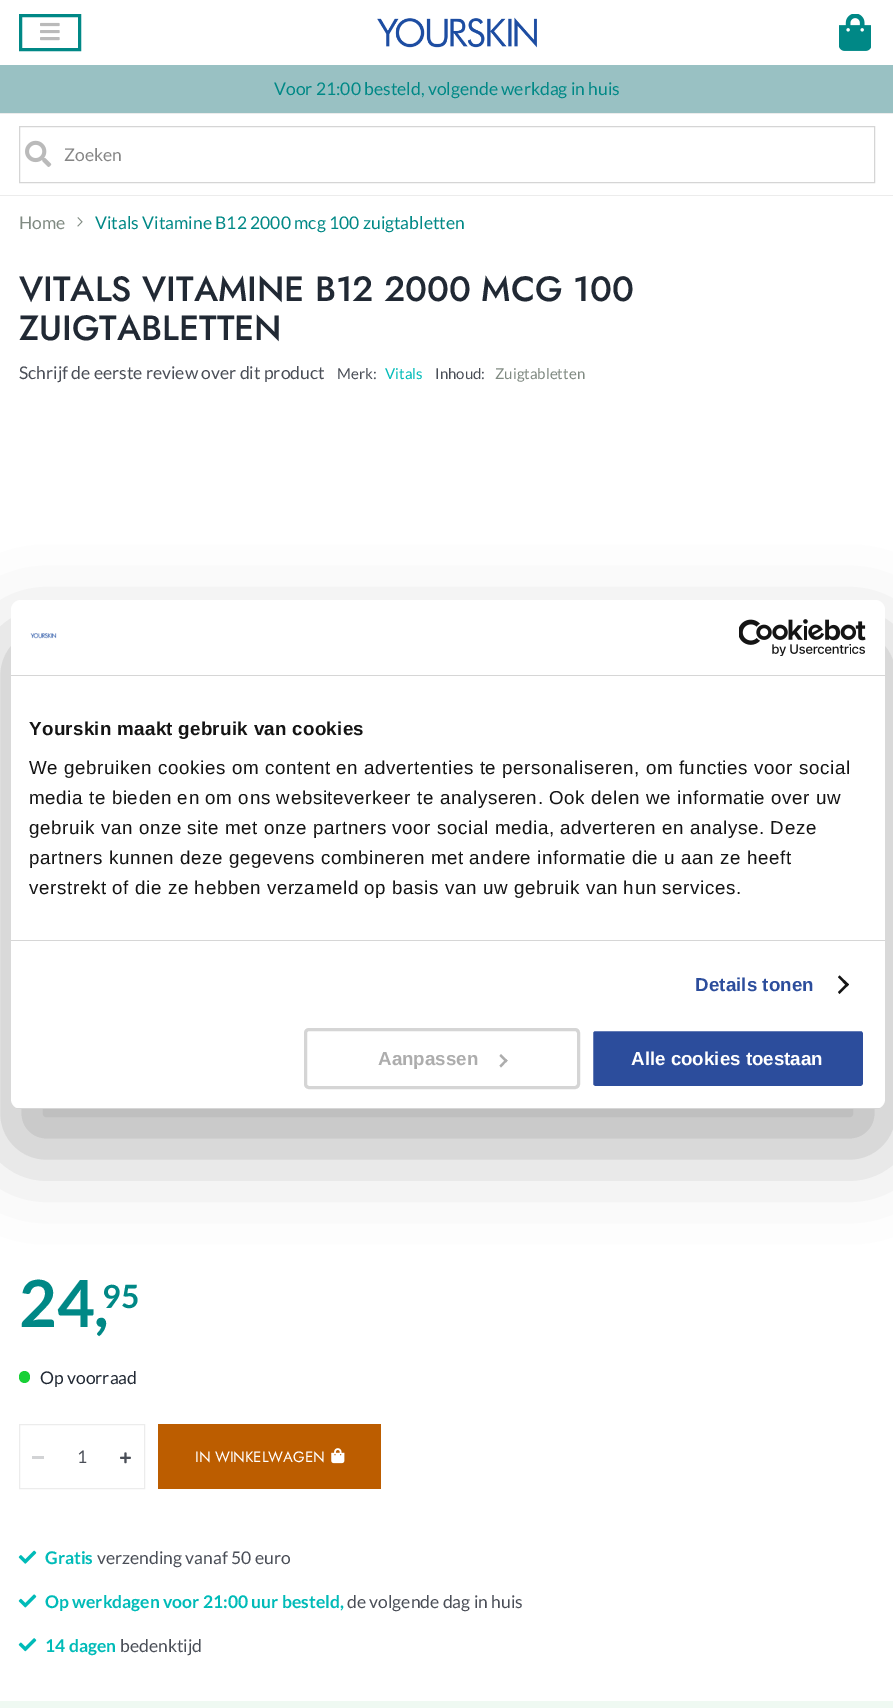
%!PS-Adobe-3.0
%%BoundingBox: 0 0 893 1708
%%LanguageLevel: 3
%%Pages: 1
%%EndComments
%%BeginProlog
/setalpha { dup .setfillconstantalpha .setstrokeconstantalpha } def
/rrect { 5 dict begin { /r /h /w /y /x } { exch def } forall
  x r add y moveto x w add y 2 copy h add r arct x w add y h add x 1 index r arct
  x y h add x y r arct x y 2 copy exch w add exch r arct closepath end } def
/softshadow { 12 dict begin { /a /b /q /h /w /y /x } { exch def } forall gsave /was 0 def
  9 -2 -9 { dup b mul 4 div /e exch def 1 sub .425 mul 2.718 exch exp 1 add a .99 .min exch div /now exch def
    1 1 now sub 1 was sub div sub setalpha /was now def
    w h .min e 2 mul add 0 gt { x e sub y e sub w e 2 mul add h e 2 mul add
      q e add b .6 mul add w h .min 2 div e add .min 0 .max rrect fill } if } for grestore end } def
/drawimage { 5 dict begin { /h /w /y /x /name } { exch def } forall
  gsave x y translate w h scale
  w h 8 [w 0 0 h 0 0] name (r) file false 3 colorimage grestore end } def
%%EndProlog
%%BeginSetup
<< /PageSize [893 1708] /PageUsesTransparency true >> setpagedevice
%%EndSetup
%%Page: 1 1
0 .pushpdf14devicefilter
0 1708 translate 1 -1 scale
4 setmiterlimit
1 setgray
0 0 893 1708 rectfill
0 0.533 0.525 setrgbcolor
3 setlinewidth
20.5 15.5 59 34 rectstroke
(images/1.raw) 40 22 20 19 drawimage
(images/2.raw) 377 17 160 31 drawimage
(images/3.raw) 839 14 32 37 drawimage
0.6 0.757 0.765 setrgbcolor
0 65 893 48 rectfill
0.835 setgray
1 setlinewidth
19.5 126.5 855 56 rectstroke
(images/4.raw) 25 140 27 27 drawimage
0.925 setgray
0 113 893 1 rectfill
0 195 893 1 rectfill
(images/5.raw) 77 217 6 10 drawimage
0.094 0.816 0.212 setrgbcolor
19 1371 11 12 5.5 rrect fill
0.925 setgray
19.5 1424.5 125 64 rectstroke
0.824 0.827 0.835 setrgbcolor
32 1456 12 3 rectfill
(images/6.raw) 120 1452 11 12 drawimage
0.737 0.365 0 setrgbcolor
158 1424 223 65 rectfill
(images/7.raw) 331 1448 14 16 drawimage
(images/8.raw) 18 1550 19 14 drawimage
(images/9.raw) 18 1594 19 14 drawimage
(images/10.raw) 18 1638 19 14 drawimage
0.937 0.976 0.949 setrgbcolor
0 1701 893 7 rectfill
0 setgray
11 640 874 509 10 42.5 0.3 softshadow
1 setgray
11 600 874 509 10 rrect fill
0.839 setgray
11 675 874 1 rectfill
(images/11.raw) 30 633 27 6 drawimage
(images/12.raw) 739 619 127 37 drawimage
11 940 874 1 rectfill
0.078 setgray
newpath 839.5 975.5 moveto 849 984.5 lineto 847 986.5 lineto 838 977 lineto closepath fill
newpath 847 983 moveto 849 984.5 lineto 839.5 994 lineto 838 992 lineto closepath fill
gsave
11 600 874 509 10 rrect clip newpath
0.839 setgray
11 1108 874 1 rectfill
grestore
0.835 setgray
3 setlinewidth
305.5 1029.5 273 58 3.5 rrect stroke
0.678 setgray
newpath 501 1054 moveto 507.5 1060.5 lineto 506 1062.5 lineto 499.5 1056 lineto closepath fill
newpath 506 1059 moveto 507.5 1060.5 lineto 501 1067.5 lineto 499.5 1065.5 lineto closepath fill
0.173 0.302 0.612 setrgbcolor
591.5 1029.5 273 58 3.5 rrect gsave fill grestore
1 setgray
stroke
/Lato-Regular [17.5 0 0 -17.5 0 0] selectfont
0 0.533 0.525 setrgbcolor
274 95 moveto (Voor 21:00 besteld, volgende werkdag in huis) show
0.525 setgray
64 161 moveto (Zoeken) show
0.502 0.541 0.51 setrgbcolor
19 229 moveto (Home) show
0 0.533 0.525 setrgbcolor
95 229 moveto (Vitals Vitamine B12 2000 mcg 100 zuigtabletten) show
/Jost-Medium [35 0 0 -35 0 0] selectfont
0.129 0.161 0.204 setrgbcolor
19 301 moveto (VITALS VITAMINE B12 2000 MCG 100) show
19 340 moveto (ZUIGTABLETTEN) show
/Lato-Regular [17.5 0 0 -17.5 0 0] selectfont
0.29 0.306 0.341 setrgbcolor
19 379 moveto (Schrijf de eerste review over dit product) show
/Lato-Regular [15 0 0 -15 0 0] selectfont
337 379 moveto (Merk:) show
0 0.733 0.722 setrgbcolor
385 379 moveto (Vitals) show
0.29 0.306 0.341 setrgbcolor
435 379 moveto (Inhoud:) show
0.502 0.541 0.51 setrgbcolor
495 379 moveto (Zuigtabletten) show
/Lato-Bold [65 0 0 -65 0 0] selectfont
0 0.533 0.525 setrgbcolor
19 1327 moveto (24,) show
/Lato-Bold [32 0 0 -32 0 0] selectfont
102 1308 moveto (95) show
/Lato-Regular [17.5 0 0 -17.5 0 0] selectfont
0.129 0.161 0.204 setrgbcolor
40 1384 moveto (Op voorraad) show
0.29 0.306 0.341 setrgbcolor
77 1463 moveto (1) show
/Jost-Regular [15 0 0 -15 0 0] selectfont
1 setgray
195 1462 moveto (IN WINKELWAGEN) show
/Lato-Bold [17.5 0 0 -17.5 0 0] selectfont
0 0.733 0.722 setrgbcolor
45 1564 moveto (Gratis) show
/Lato-Regular [17.5 0 0 -17.5 0 0] selectfont
0.29 0.306 0.341 setrgbcolor
97 1564 moveto (verzending vanaf 50 euro) show
/Lato-Bold [17.5 0 0 -17.5 0 0] selectfont
0 0.733 0.722 setrgbcolor
45 1608 moveto (Op werkdagen voor 21:00 uur besteld,) show
/Lato-Regular [17.5 0 0 -17.5 0 0] selectfont
0.29 0.306 0.341 setrgbcolor
347 1608 moveto (de volgende dag in huis) show
/Lato-Bold [17.5 0 0 -17.5 0 0] selectfont
0 0.733 0.722 setrgbcolor
45 1652 moveto (14 dagen) show
/Lato-Regular [17.5 0 0 -17.5 0 0] selectfont
0.29 0.306 0.341 setrgbcolor
120 1652 moveto (bedenktijd) show
/LiberationSans-Bold [18.75 0 0 -18.75 0 0] selectfont
0.078 setgray
29 735 moveto 0.3 0 (Yourskin maakt gebruik van cookies) ashow
/LiberationSans-Regular [18.75 0 0 -18.75 0 0] selectfont
29 774 moveto 0.62 0 (We gebruiken cookies om content en advertenties te personaliseren, om functies voor social) ashow
29 804 moveto 0.62 0 (media te bieden en om ons websiteverkeer te analyseren. Ook delen we informatie over uw) ashow
29 834 moveto 0.62 0 (gebruik van onze site met onze partners voor social media, adverteren en analyse. Deze) ashow
29 864 moveto 0.62 0 (partners kunnen deze gegevens combineren met andere informatie die u aan ze heeft) ashow
29 894 moveto 0.62 0 (verstrekt of die ze hebben verzameld op basis van uw gebruik van hun services.) ashow
/LiberationSans-Bold [18.75 0 0 -18.75 0 0] selectfont
0.173 0.302 0.612 setrgbcolor
695 991 moveto 0.1 0 (Details tonen) ashow
0.678 setgray
378 1065 moveto (Aanpassen) show
1 setgray
631 1065 moveto (Alle cookies toestaan) show
.poppdf14devicefilter showpage
%%EOF
